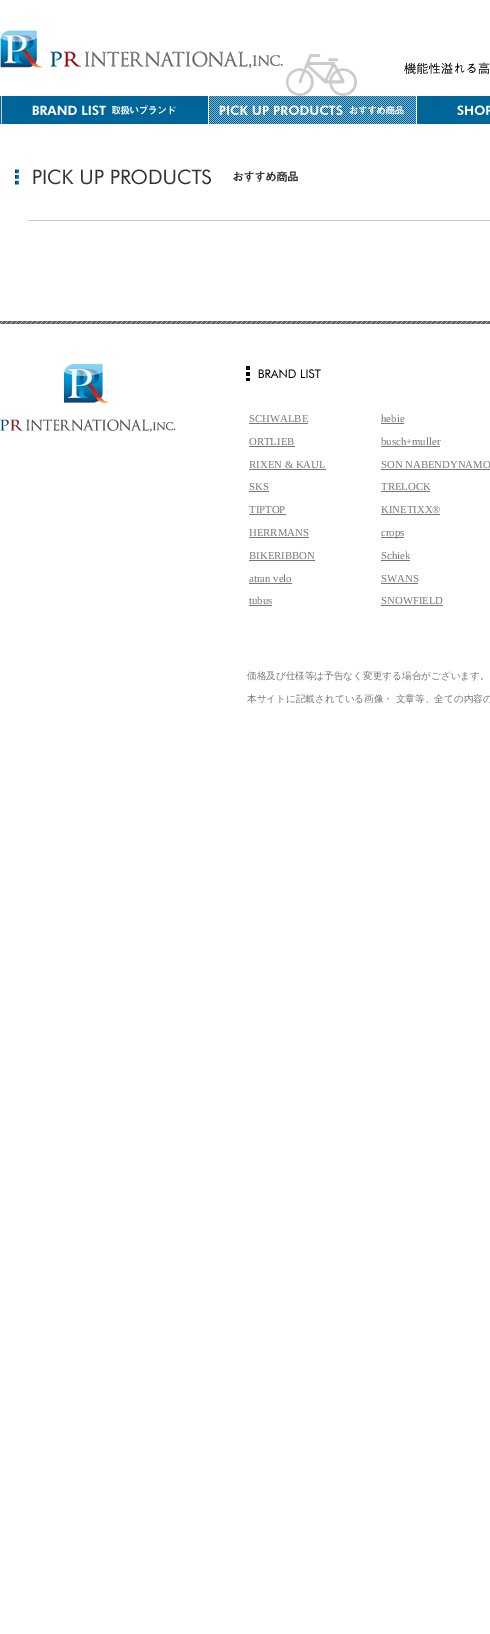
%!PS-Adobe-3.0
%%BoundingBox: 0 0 490 1634
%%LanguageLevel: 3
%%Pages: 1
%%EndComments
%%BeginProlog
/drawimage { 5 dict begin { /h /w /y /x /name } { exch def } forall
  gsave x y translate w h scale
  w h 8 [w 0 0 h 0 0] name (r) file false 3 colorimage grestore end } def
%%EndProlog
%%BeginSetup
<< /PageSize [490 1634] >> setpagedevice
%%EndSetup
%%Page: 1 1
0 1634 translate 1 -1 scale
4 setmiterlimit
1 setgray
0 0 490 1634 rectfill
0 0.4 0.6 setrgbcolor
0 96 490 28 rectfill
(images/1.raw) 286 54 71 42 drawimage
(images/2.raw) 0 30 283 38 drawimage
(images/3.raw) 404 62 86 12 drawimage
0.8 setgray
1 96 1 28 rectfill
(images/4.raw) 32 105 144 10 drawimage
1 setgray
208 96 1 28 rectfill
(images/5.raw) 209 96 207 28 drawimage
416 96 1 28 rectfill
(images/6.raw) 457 105 33 10 drawimage
(images/7.raw) 15 169 283 16 drawimage
0.8 setgray
28 220 462 1 rectfill
(images/8.raw) 0 321 490 3 drawimage
(images/9.raw) 0 364 176 68 drawimage
(images/10.raw) 246 366 75 15 drawimage
0.467 setgray
249 423 59 1 rectfill
249 446 46 1 rectfill
249 469 77 1 rectfill
249 491 20 1 rectfill
249 514 37 1 rectfill
249 537 60 1 rectfill
249 560 66 1 rectfill
249 583 43 1 rectfill
249 605 23 1 rectfill
381 423 23 1 rectfill
381 446 59 1 rectfill
381 469 109 1 rectfill
381 491 49 1 rectfill
381 514 59 1 rectfill
381 537 23 1 rectfill
381 560 29 1 rectfill
381 583 37 1 rectfill
381 605 62 1 rectfill
/LiberationSerif-Regular [10.75 0 0 -10.75 0 0] selectfont
249 422 moveto (SCHWALBE) show
249 445 moveto (ORTLIEB) show
249 468 moveto (RIXEN & KAUL) show
249 490 moveto (SKS) show
249 513 moveto (TIPTOP) show
249 536 moveto (HERRMANS) show
249 559 moveto (BIKERIBBON) show
249 582 moveto (atran velo) show
249 604 moveto (tubus) show
381 422 moveto (hebie) show
381 445 moveto (busch+muller) show
381 468 moveto (SON NABENDYNAMO) show
381 490 moveto (TRELOCK) show
381 513 moveto (KINETIXX®) show
381 536 moveto (crops) show
381 559 moveto (Schiek) show
381 582 moveto (SWANS) show
381 604 moveto (SNOWFIELD) show
/WenQuanYiZenHei-Medium [9.6 0 0 -9.6 0 0] selectfont
247 679 moveto (価格及び仕様等は予告なく変更する場合がございます。) show
247 702 moveto (本サイトに記載されている画像・ 文章等、全ての内容の) show
showpage
%%EOF
